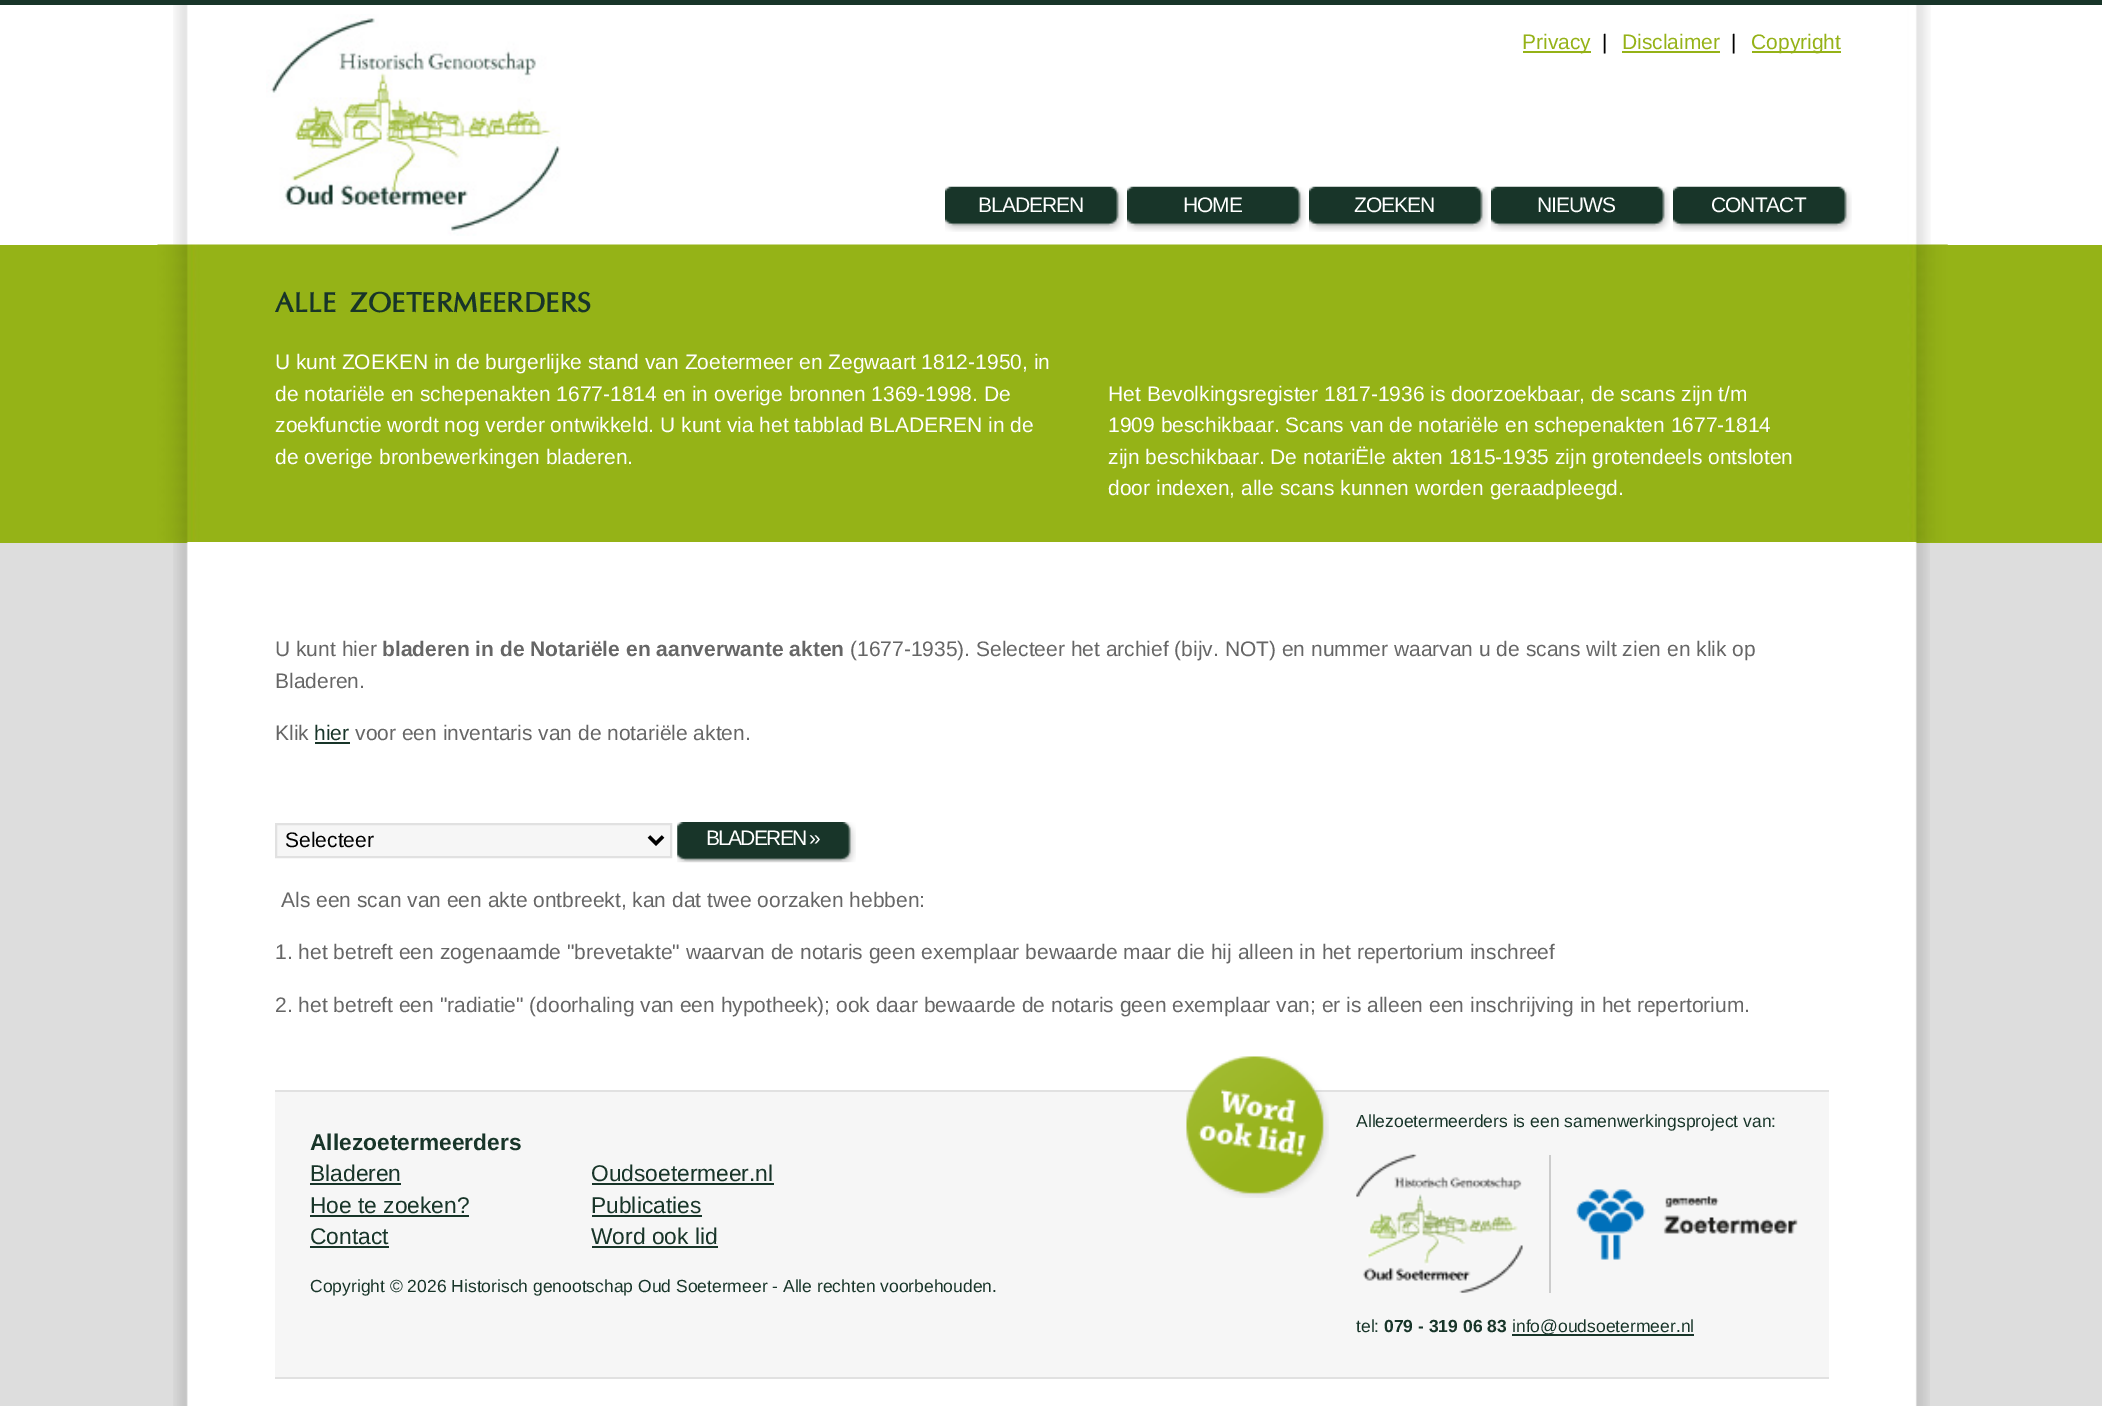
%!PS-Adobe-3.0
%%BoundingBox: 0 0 2102 1406
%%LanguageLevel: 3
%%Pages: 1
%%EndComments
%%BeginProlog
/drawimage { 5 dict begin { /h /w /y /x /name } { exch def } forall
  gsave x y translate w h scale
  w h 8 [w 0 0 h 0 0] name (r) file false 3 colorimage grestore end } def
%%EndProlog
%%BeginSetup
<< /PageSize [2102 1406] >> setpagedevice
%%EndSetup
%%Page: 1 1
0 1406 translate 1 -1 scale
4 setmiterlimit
0.867 setgray
0 0 2102 1406 rectfill
1 setgray
0 5 2102 240 rectfill
(images/1.raw) 173 5 1758 240 drawimage
0.094 0.208 0.161 setrgbcolor
0 0 2102 5 rectfill
(images/2.raw) 266 14 295 222 drawimage
0.584 0.698 0.09 setrgbcolor
1523 51 68 2 rectfill
1622 51 98 2 rectfill
1752 51 89 2 rectfill
(images/3.raw) 945 186 179 46 drawimage
(images/3.raw) 1127 186 179 46 drawimage
(images/4.raw) 1309 186 179 46 drawimage
(images/3.raw) 1491 186 179 46 drawimage
(images/3.raw) 1673 186 179 46 drawimage
0.584 0.702 0.09 setrgbcolor
0 245 2102 298 rectfill
(images/5.raw) 157 244 1791 298 drawimage
(images/6.raw) 173 542 1757 864 drawimage
0.094 0.208 0.161 setrgbcolor
315 742 35 2 rectfill
0.965 setgray
newpath 276 824 moveto 671 824 lineto 671 857 lineto 276 857 lineto closepath gsave fill grestore
0.882 setgray
2 setlinewidth
stroke
0 setgray
3.5 setlinewidth
newpath 649 836.5 moveto 656 843.5 lineto 663 836.5 lineto stroke
(images/7.raw) 677 822 179 41 drawimage
0.965 setgray
275 1092 1554 285 rectfill
0.882 setgray
275 1090 1554 2 rectfill
275 1377 1554 2 rectfill
0.094 0.208 0.161 setrgbcolor
310 1183 91 2 rectfill
310 1215 159 2 rectfill
310 1246 79 2 rectfill
592 1183 182 2 rectfill
592 1215 110 2 rectfill
592 1246 126 2 rectfill
(images/8.raw) 1186 1056 143 142 drawimage
0.8 setgray
1549 1155 2 138 rectfill
(images/9.raw) 1356 1154 167 139 drawimage
(images/10.raw) 1576 1189 222 71 drawimage
0.094 0.208 0.161 setrgbcolor
1512 1334 182 2 rectfill
/LiberationSans-Regular [21 0 0 -21 0 0] selectfont
0.584 0.698 0.09 setrgbcolor
1522 49 moveto (Privacy) show
0 setgray
1602 49 moveto (|) show
0.584 0.698 0.09 setrgbcolor
1622 49 moveto (Disclaimer) show
0 setgray
1731 49 moveto (|) show
0.584 0.698 0.09 setrgbcolor
1751 49 moveto (Copyright) show
1 setgray
978 212 moveto -1 0 (BLADEREN) ashow
1183 212 moveto -1 0 (HOME) ashow
1354 212 moveto -1 0 (ZOEKEN) ashow
1537 212 moveto -1 0 (NIEUWS) ashow
1711 212 moveto -1 0 (CONTACT) ashow
/Optima-Bold [31.5 0 0 -31.5 0 0] selectfont
0.094 0.208 0.161 setrgbcolor
275 312 moveto (ALLE ZOETERMEERDERS) show
/LiberationSans-Regular [21 0 0 -21 0 0] selectfont
1 setgray
275 369 moveto (U kunt ZOEKEN in de burgerlijke stand van Zoetermeer en Zegwaart 1812-1950, in) show
275 401 moveto (de notariële en schepenakten 1677-1814 en in overige bronnen 1369-1998. De) show
275 432 moveto (zoekfunctie wordt nog verder ontwikkeld. U kunt via het tabblad BLADEREN in de) show
275 464 moveto (de overige bronbewerkingen bladeren.) show
1108 401 moveto (Het Bevolkingsregister 1817-1936 is doorzoekbaar, de scans zijn t/m) show
1108 432 moveto (1909 beschikbaar. Scans van de notariële en schepenakten 1677-1814) show
1108 464 moveto (zijn beschikbaar. De notariËle akten 1815-1935 zijn grotendeels ontsloten) show
1108 495 moveto (door indexen, alle scans kunnen worden geraadpleegd.) show
0.4 setgray
275 656 moveto (U kunt hier) show
/LiberationSans-Bold [21 0 0 -21 0 0] selectfont
382 656 moveto (bladeren in de Notariële en aanverwante akten) show
/LiberationSans-Regular [21 0 0 -21 0 0] selectfont
850 656 moveto (\(1677-1935\). Selecteer het archief \(bijv. NOT\) en nummer waarvan u de scans wilt zien en klik op) show
275 688 moveto (Bladeren.) show
275 740 moveto (Klik) show
0.094 0.208 0.161 setrgbcolor
314 740 moveto (hier) show
0.4 setgray
355 740 moveto (voor een inventaris van de notariële akten.) show
0 setgray
285 847 moveto (Selecteer) show
1 setgray
706 845 moveto -1.75 0 (BLADEREN ») ashow
0.4 setgray
281 907 moveto (Als een scan van een akte ontbreekt, kan dat twee oorzaken hebben:) show
275 959 moveto (1. het betreft een zogenaamde "brevetakte" waarvan de notaris geen exemplaar bewaarde maar die hij alleen in het repertorium inschreef) show
275 1012 moveto (2. het betreft een "radiatie" \(doorhaling van een hypotheek\); ook daar bewaarde de notaris geen exemplaar van; er is alleen een inschrijving in het repertorium.) show
/LiberationSans-Bold [22.75 0 0 -22.75 0 0] selectfont
0.094 0.208 0.161 setrgbcolor
310 1150 moveto (Allezoetermeerders) show
/LiberationSans-Regular [22.75 0 0 -22.75 0 0] selectfont
310 1181 moveto (Bladeren) show
310 1213 moveto (Hoe te zoeken?) show
310 1244 moveto (Contact) show
591 1181 moveto (Oudsoetermeer.nl) show
591 1213 moveto (Publicaties) show
591 1244 moveto (Word ook lid) show
/LiberationSans-Regular [17.5 0 0 -17.5 0 0] selectfont
310 1292 moveto (Copyright © 2026 Historisch genootschap Oud Soetermeer - Alle rechten voorbehouden.) show
1356 1127 moveto (Allezoetermeerders is een samenwerkingsproject van:) show
1356 1332 moveto (tel:) show
/LiberationSans-Bold [17.5 0 0 -17.5 0 0] selectfont
1384 1332 moveto (079 - 319 06 83) show
/LiberationSans-Regular [17.5 0 0 -17.5 0 0] selectfont
1512 1332 moveto (info@oudsoetermeer.nl) show
showpage
%%EOF
